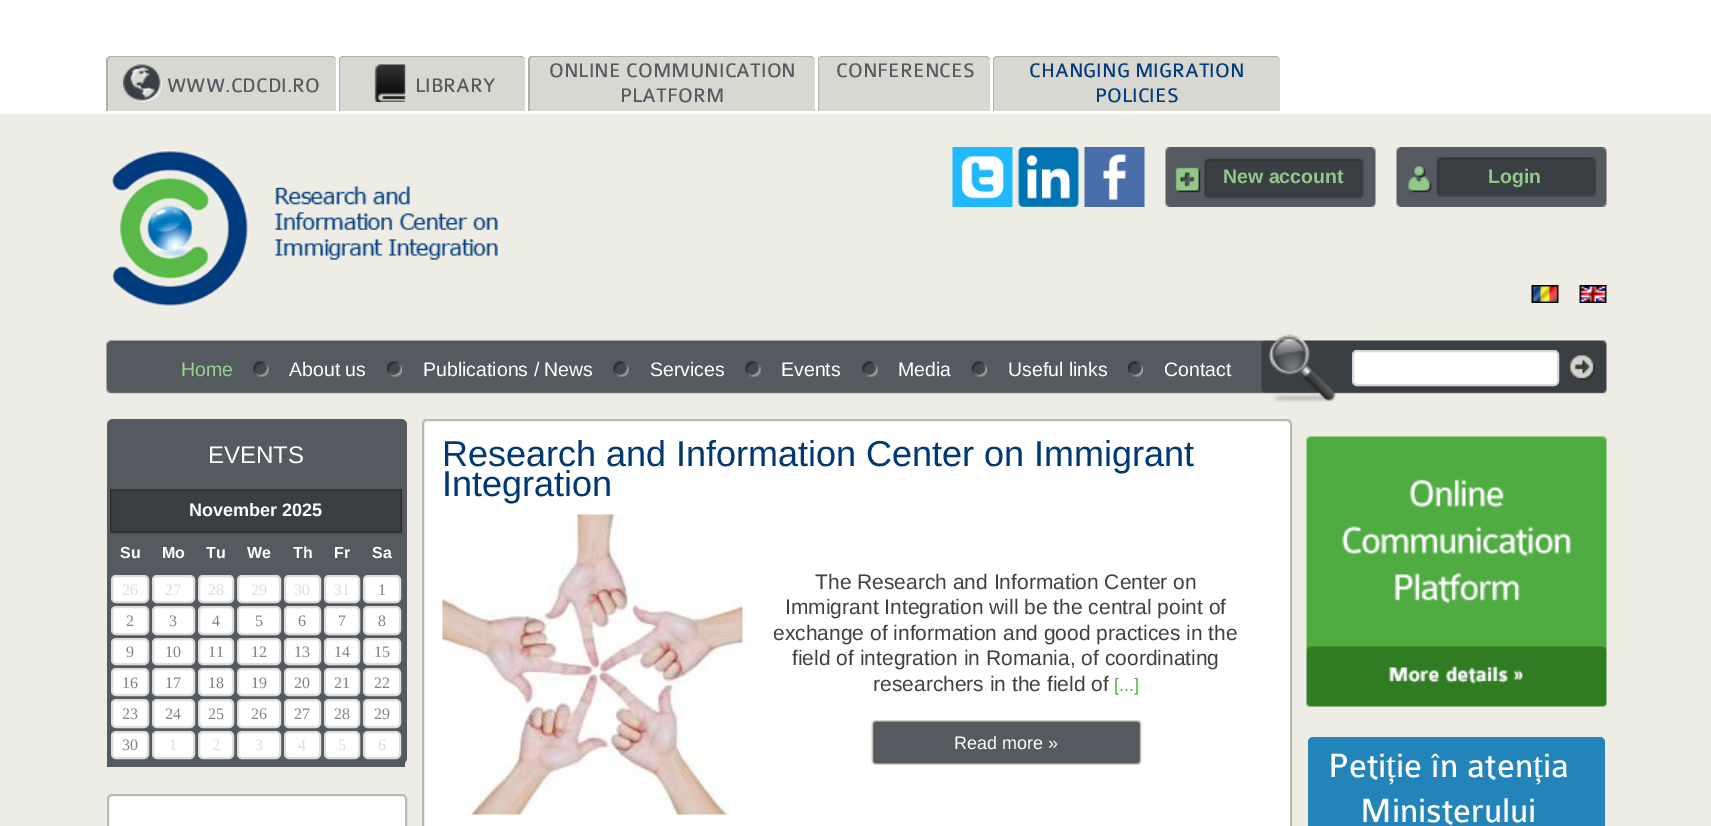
%!PS-Adobe-3.0
%%BoundingBox: 0 0 1711 826
%%LanguageLevel: 3
%%Pages: 1
%%EndComments
%%BeginProlog
/rrect { 5 dict begin { /r /h /w /y /x } { exch def } forall
  x r add y moveto x w add y 2 copy h add r arct x w add y h add x 1 index r arct
  x y h add x y r arct x y 2 copy exch w add exch r arct closepath end } def
/drawimage { 5 dict begin { /h /w /y /x /name } { exch def } forall
  gsave x y translate w h scale
  w h 8 [w 0 0 h 0 0] name (r) file false 3 colorimage grestore end } def
%%EndProlog
%%BeginSetup
<< /PageSize [1711 826] >> setpagedevice
%%EndSetup
%%Page: 1 1
0 826 translate 1 -1 scale
4 setmiterlimit
0.929 0.925 0.898 setrgbcolor
0 0 1711 826 rectfill
1 setgray
0 0 1711 114 rectfill
0.851 0.847 0.816 setrgbcolor
newpath 112 56 moveto 331 56 lineto 334 56 336 58 336 61 curveto 336 111 lineto 107 111 lineto 107 61 lineto 107 58 109 56 112 56 curveto closepath fill
0.69 0.686 0.663 setrgbcolor
newpath 111 56 moveto 332 56 lineto 334 56 336 58 336 60 curveto 336 111 lineto 106 111 lineto 106 60 lineto 106 58 109 56 111 56 curveto closepath 111 57 moveto 332 57 lineto 334 57 336 58 336 60 curveto 336 111 lineto 108 111 lineto 108 60 lineto 108 58 109 57 111 57 curveto closepath eofill
(images/1.raw) 123 64 39 38 drawimage
0.851 0.847 0.816 setrgbcolor
newpath 344 56 moveto 520 56 lineto 523 56 525 58 525 61 curveto 525 111 lineto 339 111 lineto 339 61 lineto 339 58 341 56 344 56 curveto closepath fill
0.69 0.686 0.663 setrgbcolor
newpath 344 56 moveto 520 56 lineto 523 56 525 58 525 60 curveto 525 111 lineto 339 111 lineto 339 60 lineto 339 58 341 56 344 56 curveto closepath 344 57 moveto 520 57 lineto 523 57 525 58 525 60 curveto 525 111 lineto 340 111 lineto 340 60 lineto 340 58 342 57 344 57 curveto closepath eofill
(images/2.raw) 374 64 32 38 drawimage
0.851 0.847 0.816 setrgbcolor
newpath 533 56 moveto 810 56 lineto 813 56 815 58 815 61 curveto 815 111 lineto 528 111 lineto 528 61 lineto 528 58 530 56 533 56 curveto closepath fill
0.69 0.686 0.663 setrgbcolor
newpath 532 56 moveto 810 56 lineto 812 56 814 58 814 60 curveto 814 111 lineto 528 111 lineto 528 60 lineto 528 58 530 56 532 56 curveto closepath 532 57 moveto 810 57 lineto 812 57 814 58 814 60 curveto 814 111 lineto 530 111 lineto 530 60 lineto 530 58 531 57 532 57 curveto closepath eofill
0.851 0.847 0.816 setrgbcolor
newpath 823 56 moveto 985 56 lineto 988 56 990 58 990 61 curveto 990 111 lineto 818 111 lineto 818 61 lineto 818 58 820 56 823 56 curveto closepath fill
0.69 0.686 0.663 setrgbcolor
newpath 822 56 moveto 986 56 lineto 988 56 990 58 990 60 curveto 990 111 lineto 818 111 lineto 818 60 lineto 818 58 820 56 822 56 curveto closepath 822 57 moveto 986 57 lineto 988 57 990 58 990 60 curveto 990 111 lineto 819 111 lineto 819 60 lineto 819 58 820 57 822 57 curveto closepath eofill
0.851 0.847 0.816 setrgbcolor
newpath 998 56 moveto 1275 56 lineto 1278 56 1280 58 1280 61 curveto 1280 111 lineto 993 111 lineto 993 61 lineto 993 58 995 56 998 56 curveto closepath fill
0.69 0.686 0.663 setrgbcolor
newpath 998 56 moveto 1275 56 lineto 1277 56 1280 58 1280 60 curveto 1280 111 lineto 993 111 lineto 993 60 lineto 993 58 995 56 998 56 curveto closepath 998 57 moveto 1275 57 lineto 1277 57 1280 58 1280 60 curveto 1280 111 lineto 994 111 lineto 994 60 lineto 994 58 996 57 998 57 curveto closepath eofill
(images/3.raw) 110 150 388 157 drawimage
(images/4.raw) 952 147 61 60 drawimage
(images/5.raw) 1018 147 61 60 drawimage
(images/6.raw) 1084 147 61 60 drawimage
(images/7.raw) 1165 147 211 60 drawimage
(images/8.raw) 1396 147 211 60 drawimage
(images/9.raw) 1531 285 28 18 drawimage
(images/10.raw) 1579 285 28 18 drawimage
(images/11.raw) 106 334 1501 68 drawimage
(images/12.raw) 253 361 16 16 drawimage
(images/13.raw) 387 361 15 16 drawimage
(images/14.raw) 613 361 16 16 drawimage
(images/14.raw) 745 361 16 16 drawimage
(images/12.raw) 862 361 16 16 drawimage
(images/15.raw) 972 361 15 16 drawimage
(images/13.raw) 1128 361 15 16 drawimage
1 setgray
1353 351 205 34 4 rrect gsave fill grestore
0.851 setgray
2 setlinewidth
stroke
(images/16.raw) 1569 355 26 25 drawimage
0.329 0.353 0.376 setrgbcolor
107 419 300 345 6 rrect fill
107 758 298 9 rectfill
0.227 0.247 0.263 setrgbcolor
newpath 111 490 moveto 401 490 lineto 401 532 lineto 111 532 lineto closepath gsave fill grestore
0.2 setgray
stroke
1 setgray
112 576 36 26 4 rrect gsave fill grestore
0.871 setgray
stroke
1 setgray
153 576 41 26 4 rrect gsave fill grestore
0.871 setgray
stroke
1 setgray
199 576 34 26 4 rrect gsave fill grestore
0.871 setgray
stroke
1 setgray
238 576 42 26 4 rrect gsave fill grestore
0.871 setgray
stroke
1 setgray
285 576 35 26 4 rrect gsave fill grestore
0.871 setgray
stroke
1 setgray
325 576 34 26 4 rrect gsave fill grestore
0.871 setgray
stroke
1 setgray
364 576 36 26 4 rrect gsave fill grestore
0.871 setgray
stroke
1 setgray
112 607 36 27 4 rrect gsave fill grestore
0.871 setgray
stroke
1 setgray
153 607 41 27 4 rrect gsave fill grestore
0.871 setgray
stroke
1 setgray
199 607 34 27 4 rrect gsave fill grestore
0.871 setgray
stroke
1 setgray
238 607 42 27 4 rrect gsave fill grestore
0.871 setgray
stroke
1 setgray
285 607 35 27 4 rrect gsave fill grestore
0.871 setgray
stroke
1 setgray
325 607 34 27 4 rrect gsave fill grestore
0.871 setgray
stroke
1 setgray
364 607 36 27 4 rrect gsave fill grestore
0.871 setgray
stroke
1 setgray
112 639 36 25 4 rrect gsave fill grestore
0.871 setgray
stroke
1 setgray
153 639 41 25 4 rrect gsave fill grestore
0.871 setgray
stroke
1 setgray
199 639 34 25 4 rrect gsave fill grestore
0.871 setgray
stroke
1 setgray
238 639 42 25 4 rrect gsave fill grestore
0.871 setgray
stroke
1 setgray
285 639 35 25 4 rrect gsave fill grestore
0.871 setgray
stroke
1 setgray
325 639 34 25 4 rrect gsave fill grestore
0.871 setgray
stroke
1 setgray
364 639 36 25 4 rrect gsave fill grestore
0.871 setgray
stroke
1 setgray
112 669 36 26 4 rrect gsave fill grestore
0.871 setgray
stroke
1 setgray
153 669 41 26 4 rrect gsave fill grestore
0.871 setgray
stroke
1 setgray
199 669 34 26 4 rrect gsave fill grestore
0.871 setgray
stroke
1 setgray
238 669 42 26 4 rrect gsave fill grestore
0.871 setgray
stroke
1 setgray
285 669 35 26 4 rrect gsave fill grestore
0.871 setgray
stroke
1 setgray
325 669 34 26 4 rrect gsave fill grestore
0.871 setgray
stroke
1 setgray
364 669 36 26 4 rrect gsave fill grestore
0.871 setgray
stroke
1 setgray
112 700 36 27 4 rrect gsave fill grestore
0.871 setgray
stroke
1 setgray
153 700 41 27 4 rrect gsave fill grestore
0.871 setgray
stroke
1 setgray
199 700 34 27 4 rrect gsave fill grestore
0.871 setgray
stroke
1 setgray
238 700 42 27 4 rrect gsave fill grestore
0.871 setgray
stroke
1 setgray
285 700 35 27 4 rrect gsave fill grestore
0.871 setgray
stroke
1 setgray
325 700 34 27 4 rrect gsave fill grestore
0.871 setgray
stroke
1 setgray
364 700 36 27 4 rrect gsave fill grestore
0.871 setgray
stroke
1 setgray
112 732 36 26 4 rrect gsave fill grestore
0.871 setgray
stroke
1 setgray
153 732 41 26 4 rrect gsave fill grestore
0.871 setgray
stroke
1 setgray
199 732 34 26 4 rrect gsave fill grestore
0.871 setgray
stroke
1 setgray
238 732 42 26 4 rrect gsave fill grestore
0.871 setgray
stroke
1 setgray
285 732 35 26 4 rrect gsave fill grestore
0.871 setgray
stroke
1 setgray
325 732 34 26 4 rrect gsave fill grestore
0.871 setgray
stroke
1 setgray
364 732 36 26 4 rrect gsave fill grestore
0.871 setgray
stroke
1 setgray
108 795 298 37 4 rrect gsave fill grestore
0.733 0.725 0.694 setrgbcolor
stroke
1 setgray
423 420 868 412 4 rrect gsave fill grestore
0.733 0.725 0.694 setrgbcolor
stroke
(images/17.raw) 442 514 301 301 drawimage
(images/18.raw) 871 720 271 45 drawimage
(images/19.raw) 1306 436 301 271 drawimage
0.137 0.518 0.729 setrgbcolor
1308 737 297 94 5 rrect fill
/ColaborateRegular-Regular [21 0 0 -21 0 0] selectfont
0.329 0.353 0.376 setrgbcolor
167 92 moveto (WWW.CDCDI.RO) show
415 92 moveto (LIBRARY) show
549 77 moveto (ONLINE COMMUNICATION) show
620 102 moveto (PLATFORM) show
836 77 moveto (CONFERENCES) show
0 0.235 0.49 setrgbcolor
1029 77 moveto (CHANGING MIGRATION) show
1095 102 moveto (POLICIES) show
/LiberationSans-Bold [19.5 0 0 -19.5 0 0] selectfont
0.569 0.788 0.533 setrgbcolor
1223 183 moveto (New account) show
1488 183 moveto (Login) show
/LiberationSans-Regular [19.5 0 0 -19.5 0 0] selectfont
0.592 0.827 0.557 setrgbcolor
181 376 moveto (Home) show
1 setgray
289 376 moveto (About us) show
423 376 moveto (Publications / News) show
650 376 moveto (Services) show
781 376 moveto (Events) show
898 376 moveto (Media) show
1008 376 moveto (Useful links) show
1164 376 moveto (Contact) show
/LiberationSans-Regular [24 0 0 -24 0 0] selectfont
208 463 moveto (EVENTS) show
/LiberationSans-Bold [18 0 0 -18 0 0] selectfont
189 516 moveto (November 2025) show
/LiberationSans-Bold [16 0 0 -16 0 0] selectfont
120 558 moveto (Su) show
162 558 moveto (Mo) show
206 558 moveto (Tu) show
247 558 moveto (We) show
293 558 moveto (Th) show
334 558 moveto (Fr) show
372 558 moveto (Sa) show
/LiberationSerif-Regular [16 0 0 -16 0 0] selectfont
0.871 setgray
122 595 moveto (26) show
165 595 moveto (27) show
208 595 moveto (28) show
251 595 moveto (29) show
294 595 moveto (30) show
334 595 moveto (31) show
0.518 setgray
378 595 moveto (1) show
126 626 moveto (2) show
169 626 moveto (3) show
212 626 moveto (4) show
255 626 moveto (5) show
298 626 moveto (6) show
338 626 moveto (7) show
378 626 moveto (8) show
126 657 moveto (9) show
165 657 moveto (10) show
208 657 moveto (11) show
251 657 moveto (12) show
294 657 moveto (13) show
334 657 moveto (14) show
374 657 moveto (15) show
122 688 moveto (16) show
165 688 moveto (17) show
208 688 moveto (18) show
251 688 moveto (19) show
294 688 moveto (20) show
334 688 moveto (21) show
374 688 moveto (22) show
122 719 moveto (23) show
165 719 moveto (24) show
208 719 moveto (25) show
251 719 moveto (26) show
294 719 moveto (27) show
334 719 moveto (28) show
374 719 moveto (29) show
122 750 moveto (30) show
0.871 setgray
169 750 moveto (1) show
212 750 moveto (2) show
255 750 moveto (3) show
298 750 moveto (4) show
338 750 moveto (5) show
378 750 moveto (6) show
/LiberationSans-Regular [36 0 0 -36 0 0] selectfont
0 0.22 0.447 setrgbcolor
442 466 moveto (Research and Information Center on Immigrant) show
442 496 moveto (Integration) show
/LiberationSans-Regular [21 0 0 -21 0 0] selectfont
0.247 0.251 0.259 setrgbcolor
815 589 moveto (The Research and Information Center on) show
785 614 moveto (Immigrant Integration will be the central point of) show
773 640 moveto (exchange of information and good practices in the) show
792 665 moveto (field of integration in Romania, of coordinating) show
873 691 moveto (researchers in the field of) show
/LiberationSans-Regular [18 0 0 -18 0 0] selectfont
0.31 0.675 0.251 setrgbcolor
1114 691 moveto ([...]) show
1 setgray
954 749 moveto (Read more ») show
/ColaborateRegular-Regular [36 0 0 -36 0 0] selectfont
1328 777 moveto (Peti) show
/LiberationSerif-Regular [36 0 0 -36 0 0] selectfont
1386 777 moveto (ț) show
/ColaborateRegular-Regular [36 0 0 -36 0 0] selectfont
1396 777 moveto (ie în aten) show
/LiberationSerif-Regular [36 0 0 -36 0 0] selectfont
1533 777 moveto (ț) show
/ColaborateRegular-Regular [36 0 0 -36 0 0] selectfont
1543 777 moveto (ia) show
1360 822 moveto (Ministerului) show
showpage
%%EOF
